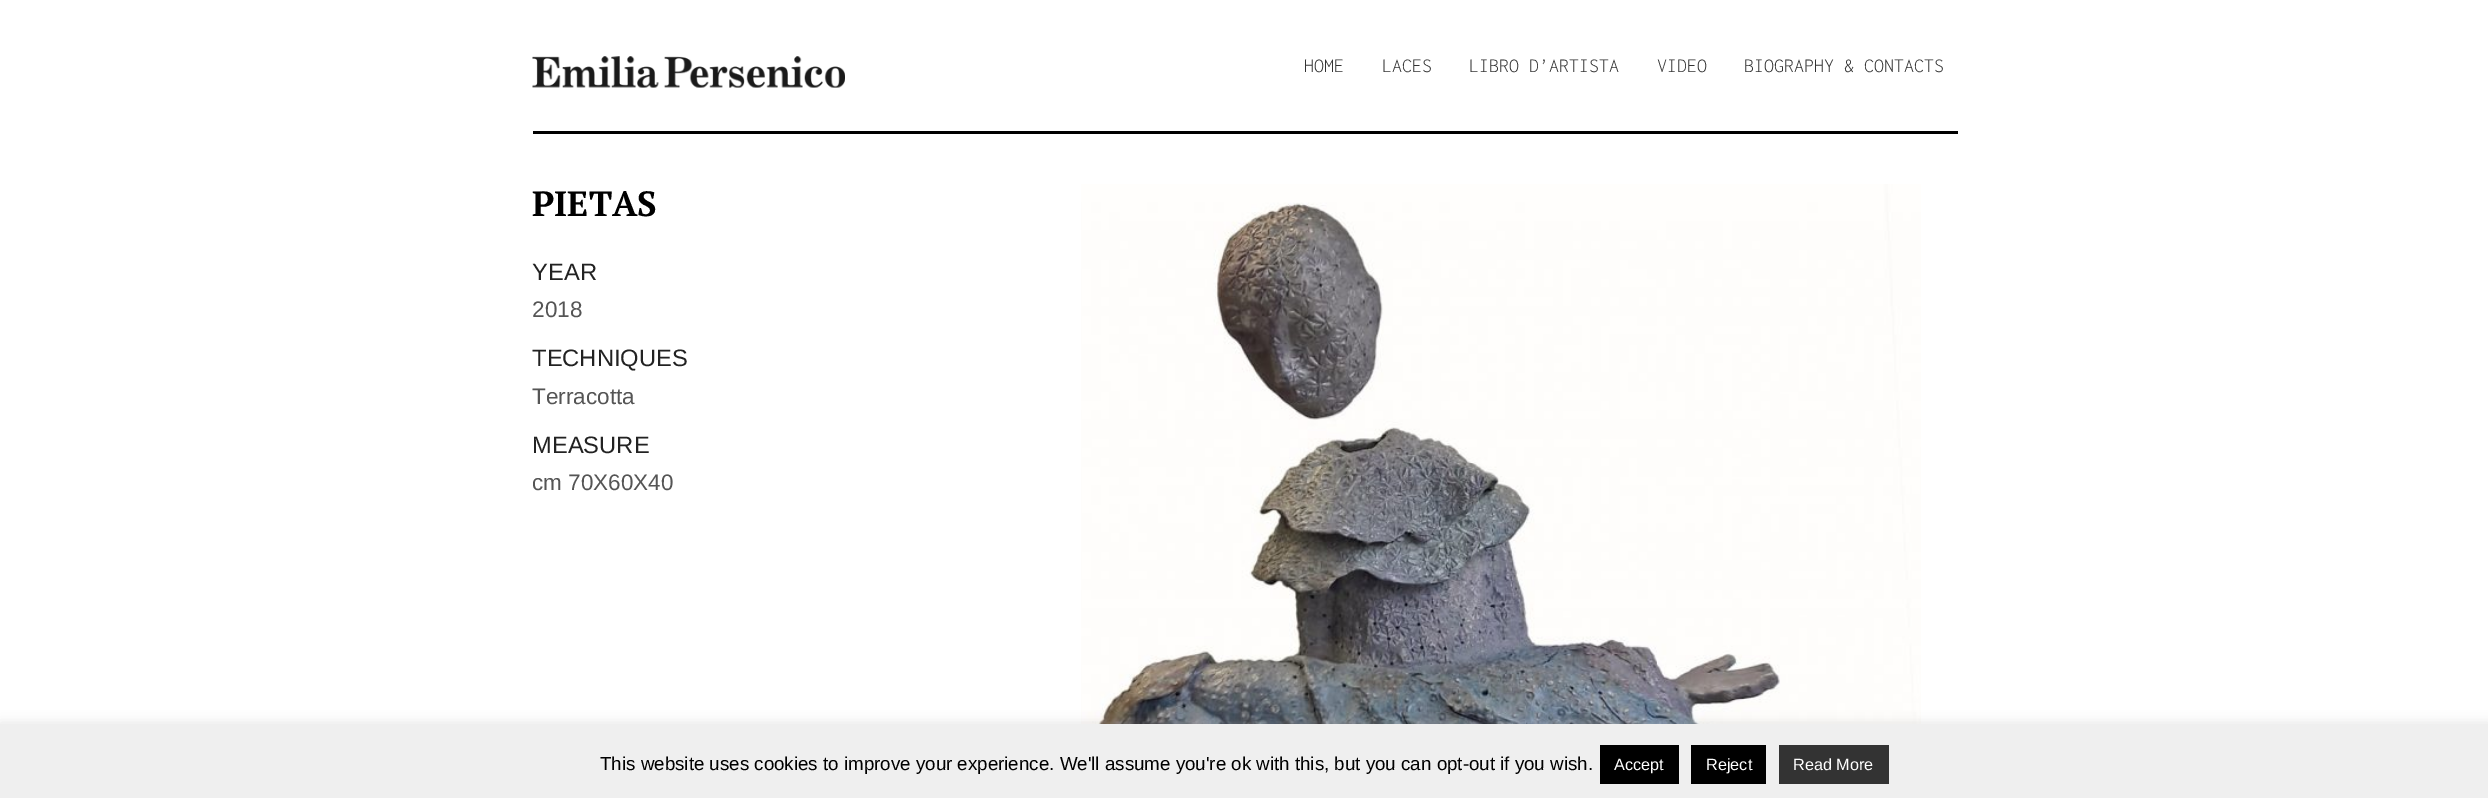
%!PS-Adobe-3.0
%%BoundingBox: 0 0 2488 798
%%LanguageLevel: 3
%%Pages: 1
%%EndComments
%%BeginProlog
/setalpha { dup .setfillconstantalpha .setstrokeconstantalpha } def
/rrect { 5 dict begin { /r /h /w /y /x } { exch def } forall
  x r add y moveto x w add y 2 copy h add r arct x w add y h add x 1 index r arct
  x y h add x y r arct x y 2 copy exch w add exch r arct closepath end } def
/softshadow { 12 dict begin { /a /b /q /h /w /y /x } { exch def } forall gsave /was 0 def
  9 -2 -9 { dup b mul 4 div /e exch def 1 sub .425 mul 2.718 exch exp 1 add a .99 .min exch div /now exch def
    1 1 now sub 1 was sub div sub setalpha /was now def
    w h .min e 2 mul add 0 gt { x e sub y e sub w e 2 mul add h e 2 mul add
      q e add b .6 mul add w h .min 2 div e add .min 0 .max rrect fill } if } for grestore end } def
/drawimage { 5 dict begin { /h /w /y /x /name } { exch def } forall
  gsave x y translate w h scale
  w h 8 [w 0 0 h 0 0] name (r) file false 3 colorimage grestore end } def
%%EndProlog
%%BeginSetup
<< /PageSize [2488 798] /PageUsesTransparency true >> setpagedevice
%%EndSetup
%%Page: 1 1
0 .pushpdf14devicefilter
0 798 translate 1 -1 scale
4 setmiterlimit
1 setgray
0 0 2488 798 rectfill
(images/1.raw) 532 56 313 32 drawimage
0 setgray
533 131 1425 3 rectfill
(images/2.raw) 1081 184 840 540 drawimage
0.675 0.671 0.671 setrgbcolor
0 723 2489 75 0 6 0.3 softshadow
0.937 setgray
0 724 2488 74 rectfill
0 setgray
1600 745 79 39 rectfill
1691 745 75 39 rectfill
0.2 setgray
1779 745 110 39 rectfill
/Inconsolata-Light [20 0 0 -20 0 0] selectfont
1304 72 moveto (HOME) show
1382 72 moveto (LACES) show
1469 72 moveto (LIBRO D’ARTISTA) show
1657 72 moveto (VIDEO) show
1744 72 moveto (BIOGRAPHY & CONTACTS) show
/PTSerif-Bold [35 0 0 -35 0 0] selectfont
0 setgray
532 216 moveto (PIETAS) show
/LiberationSans-Regular [23.75 0 0 -23.75 0 0] selectfont
0.133 setgray
532 280 moveto (YEAR) show
/LiberationSans-Regular [22.5 0 0 -22.5 0 0] selectfont
0.333 setgray
532 317 moveto (2018) show
/LiberationSans-Regular [23.75 0 0 -23.75 0 0] selectfont
0.133 setgray
532 366 moveto (TECHNIQUES) show
/LiberationSans-Regular [22.5 0 0 -22.5 0 0] selectfont
0.333 setgray
532 404 moveto (Terracotta) show
/LiberationSans-Regular [23.75 0 0 -23.75 0 0] selectfont
0.133 setgray
532 453 moveto (MEASURE) show
/LiberationSans-Regular [22.5 0 0 -22.5 0 0] selectfont
0.333 setgray
532 490 moveto (cm 70X60X40) show
/LiberationSans-Regular [18.75 0 0 -18.75 0 0] selectfont
0 setgray
600 770 moveto (This website uses cookies to improve your experience. We'll assume you're ok with this, but you can opt-out if you wish.) show
/LiberationSans-Regular [16.25 0 0 -16.25 0 0] selectfont
1 setgray
1614 770 moveto (Accept) show
1706 770 moveto (Reject) show
1793 770 moveto (Read More) show
.poppdf14devicefilter showpage
%%EOF
